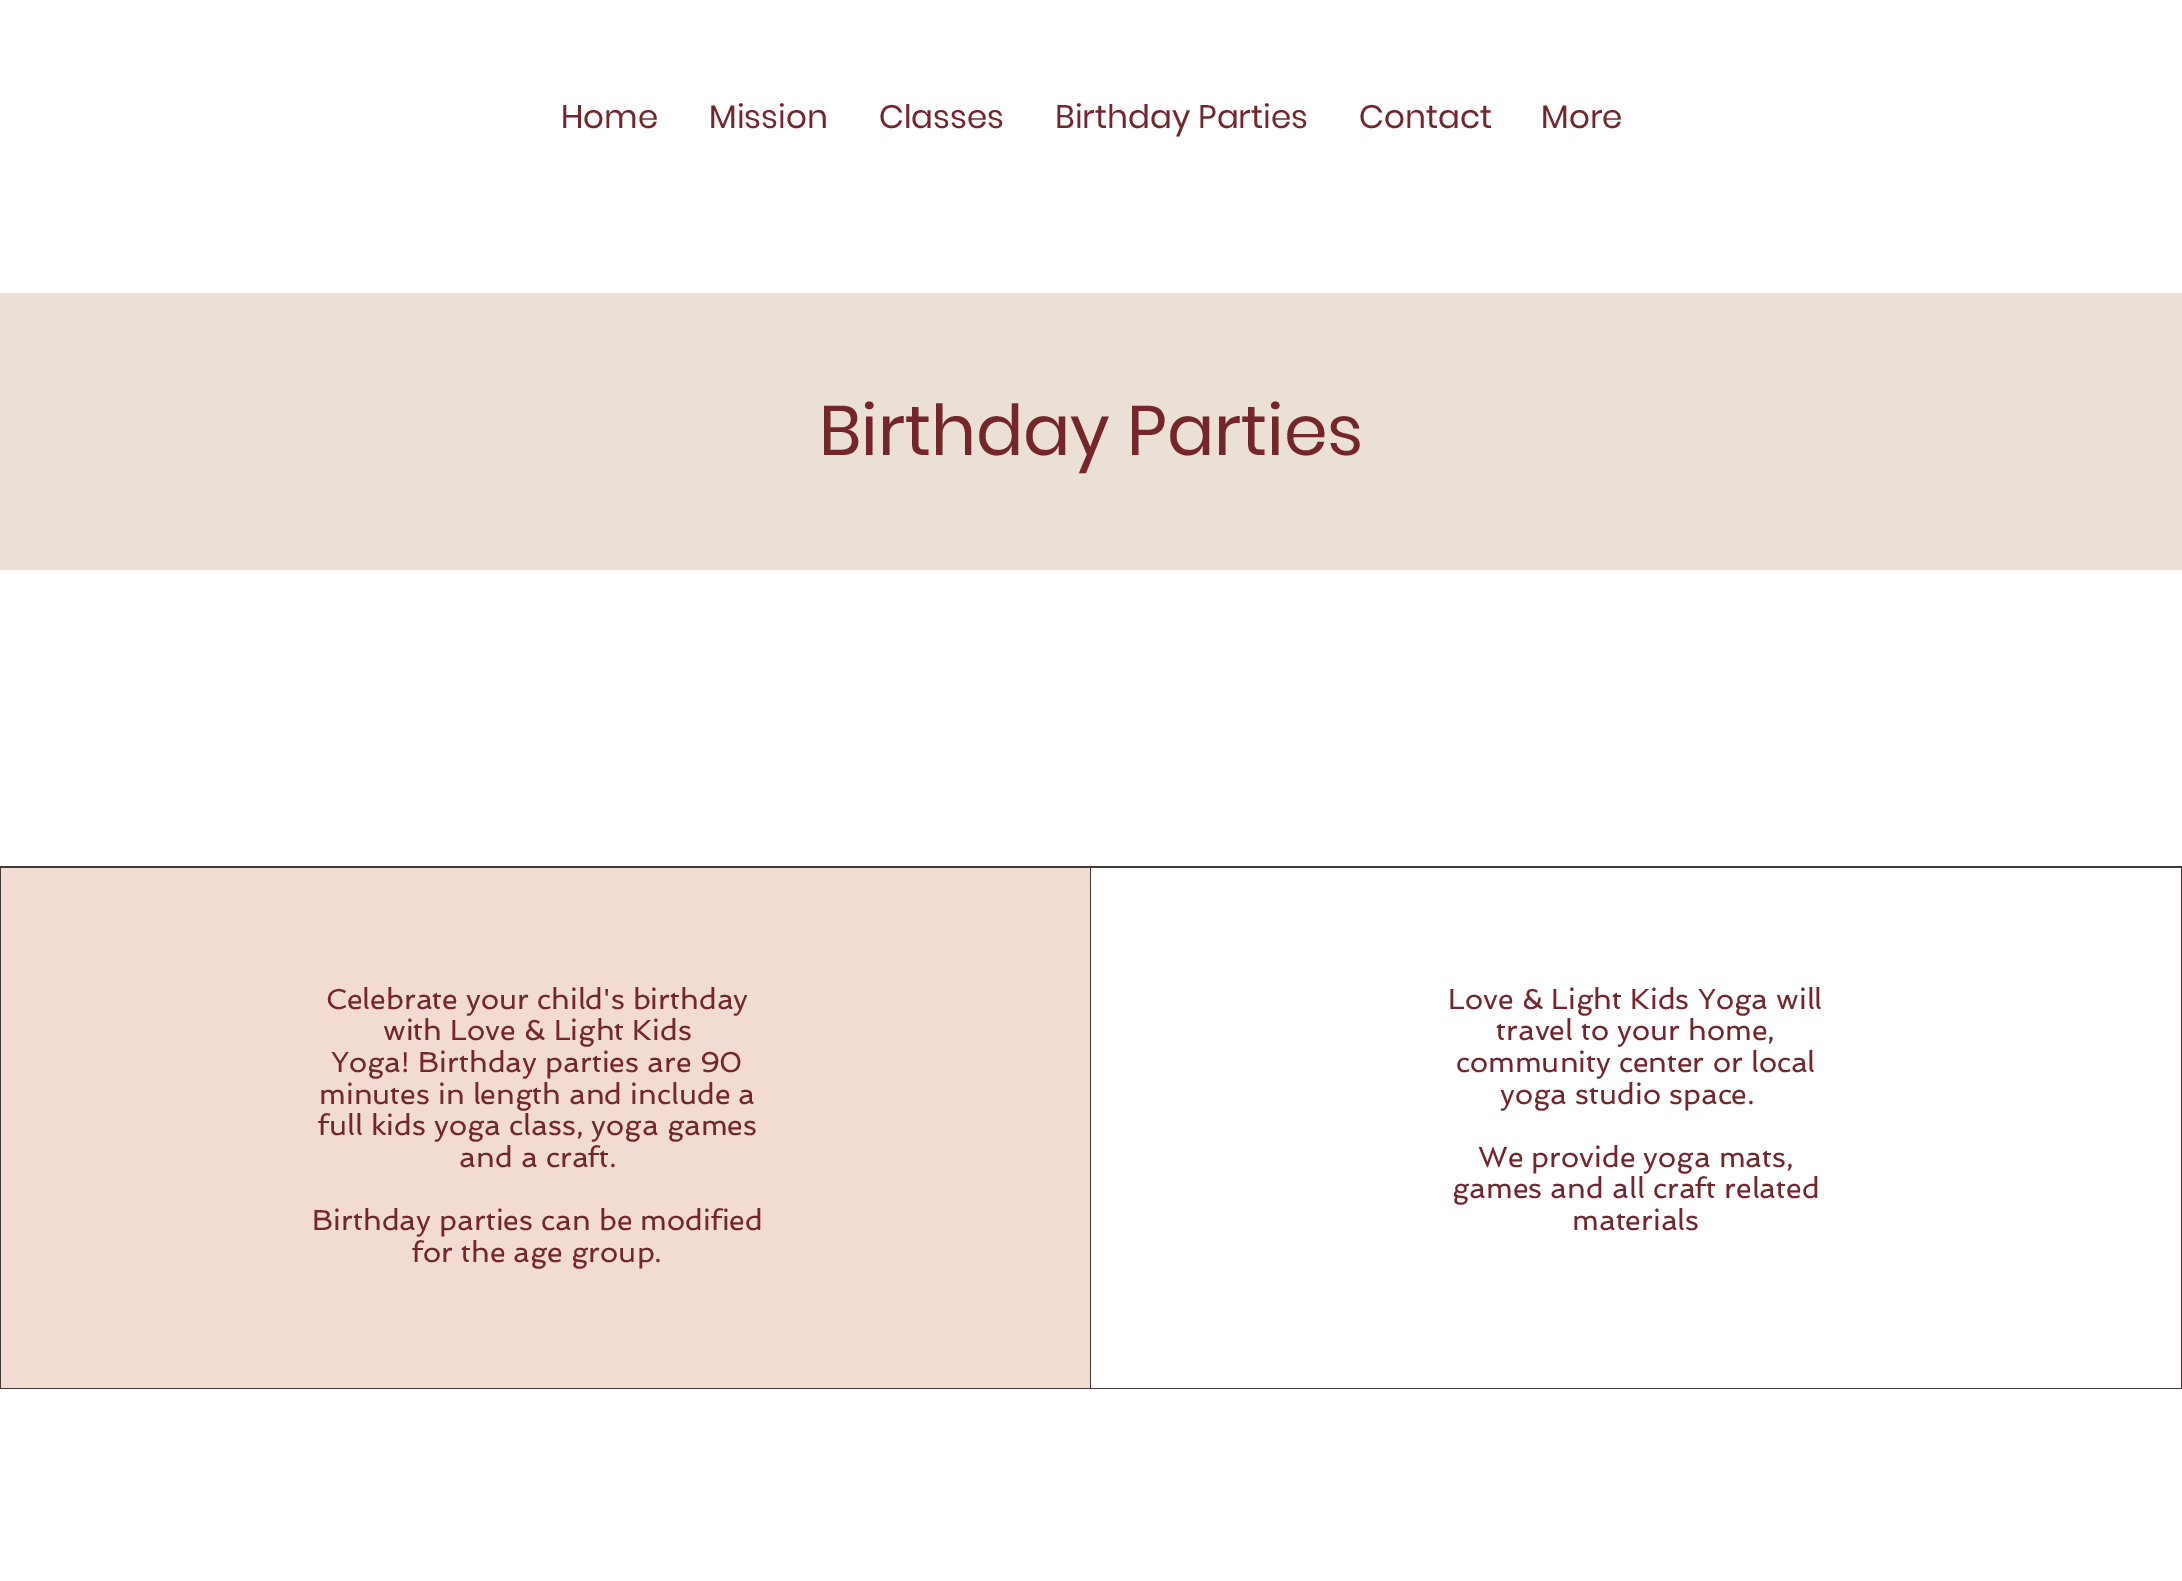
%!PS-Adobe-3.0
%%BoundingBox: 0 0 2182 1581
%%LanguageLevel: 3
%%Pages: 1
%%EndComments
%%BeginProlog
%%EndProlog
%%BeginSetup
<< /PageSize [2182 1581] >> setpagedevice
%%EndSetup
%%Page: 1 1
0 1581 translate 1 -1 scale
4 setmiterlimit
1 setgray
0 0 2182 1581 rectfill
0.922 0.878 0.835 setrgbcolor
0 293 2182 277 rectfill
0.255 0.227 0.22 setrgbcolor
0 866 2182 523 rectfill
0.945 0.859 0.827 setrgbcolor
1 868 1089 520 rectfill
1 setgray
1091 868 1090 520 rectfill
/Poppins-Regular [32.5 0 0 -32.5 0 0] selectfont
0.455 0.149 0.173 setrgbcolor
561 128 moveto (Home) show
709 128 moveto (Mission) show
879 128 moveto (Classes) show
1055 128 moveto (Birthday Parties) show
1359 128 moveto (Contact) show
1541 128 moveto (More) show
/Poppins-Regular [70 0 0 -70 0 0] selectfont
819 455 moveto (Birthday Parties) show
/Spinnaker-Regular [28.75 0 0 -28.75 0 0] selectfont
326 1009 moveto (Celebrate your child's birthday) show
383 1040 moveto (with Love & Light Kids) show
331 1072 moveto (Yoga! Birthday parties are 90) show
319 1104 moveto (minutes in length and include a) show
318 1135 moveto (full kids yoga class, yoga games) show
459 1167 moveto (and a craft.) show
312 1230 moveto (Birthday parties can be modified) show
412 1262 moveto (for the age group.) show
1448 1009 moveto (Love & Light Kids Yoga will) show
1496 1040 moveto (travel to your home,) show
1456 1072 moveto (community center or local) show
1500 1104 moveto (yoga studio space.) show
1478 1167 moveto (We provide yoga mats,) show
1452 1198 moveto (games and all craft related) show
1572 1230 moveto (materials) show
showpage
%%EOF
